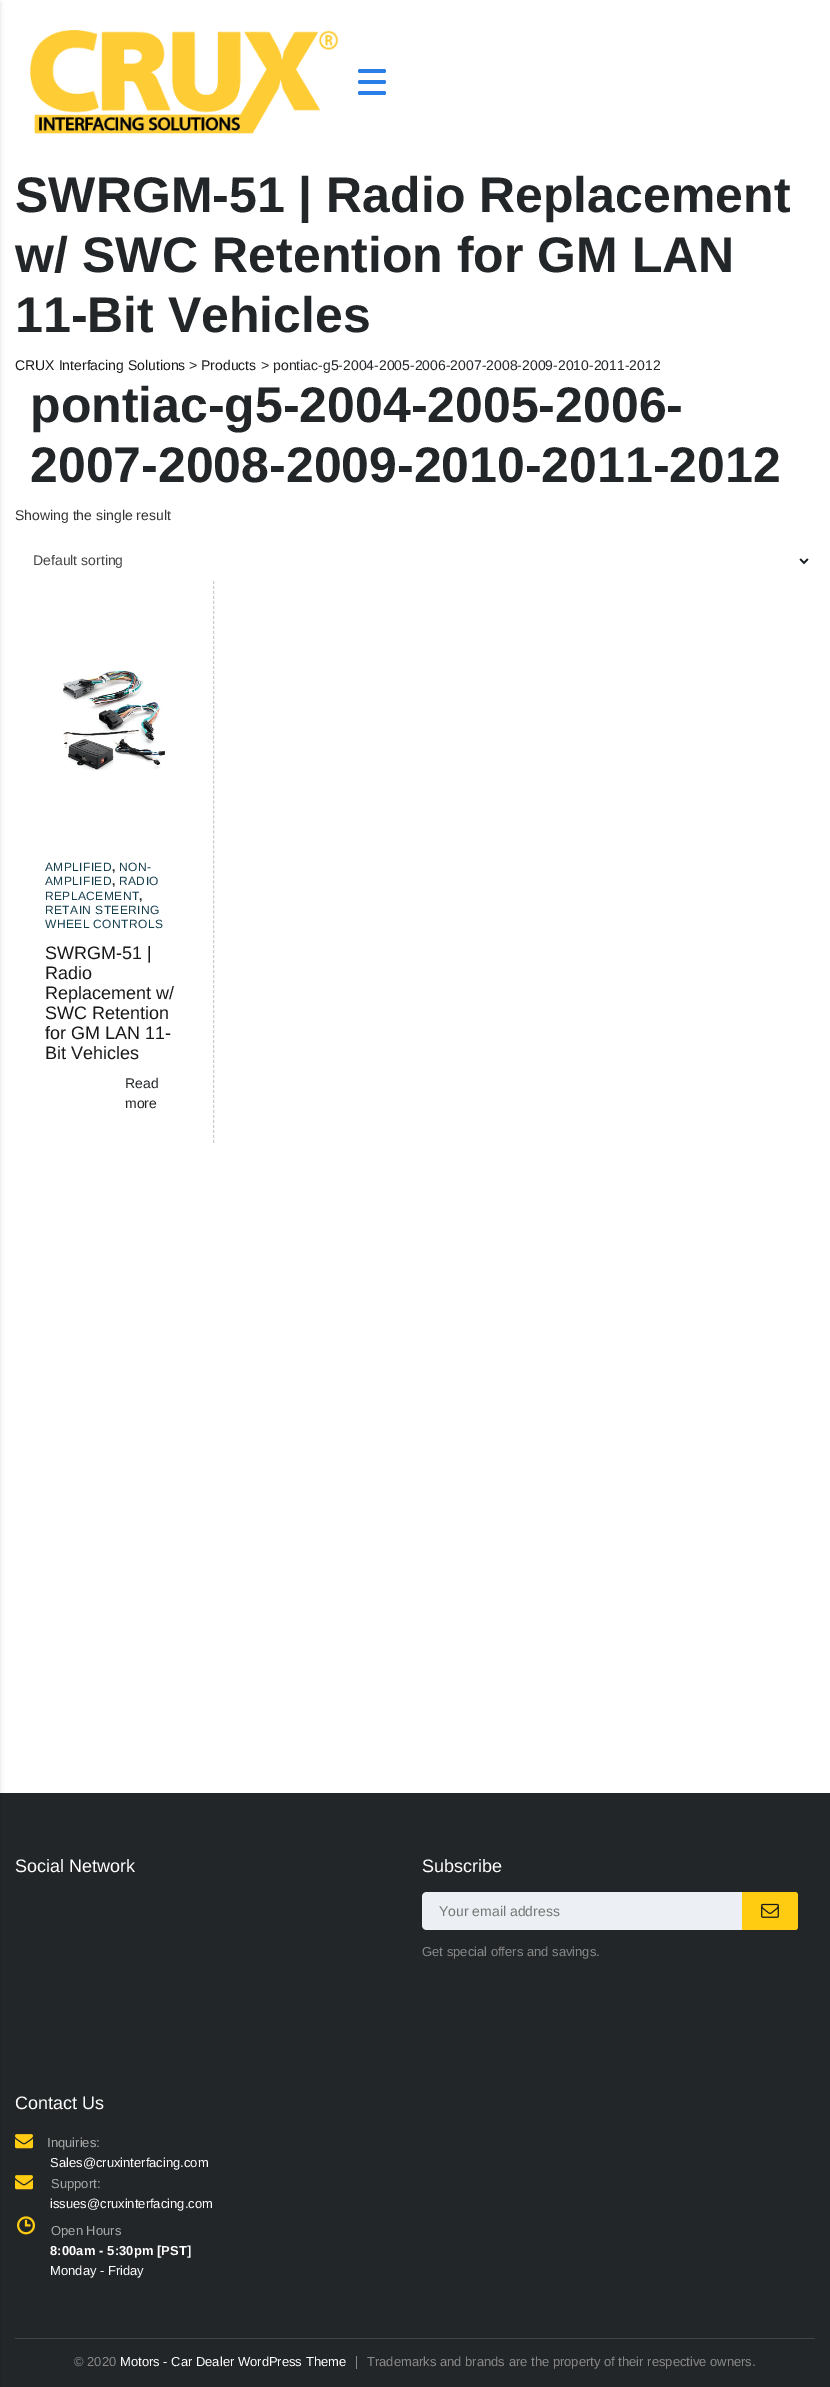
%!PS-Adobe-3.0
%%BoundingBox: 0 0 830 2387
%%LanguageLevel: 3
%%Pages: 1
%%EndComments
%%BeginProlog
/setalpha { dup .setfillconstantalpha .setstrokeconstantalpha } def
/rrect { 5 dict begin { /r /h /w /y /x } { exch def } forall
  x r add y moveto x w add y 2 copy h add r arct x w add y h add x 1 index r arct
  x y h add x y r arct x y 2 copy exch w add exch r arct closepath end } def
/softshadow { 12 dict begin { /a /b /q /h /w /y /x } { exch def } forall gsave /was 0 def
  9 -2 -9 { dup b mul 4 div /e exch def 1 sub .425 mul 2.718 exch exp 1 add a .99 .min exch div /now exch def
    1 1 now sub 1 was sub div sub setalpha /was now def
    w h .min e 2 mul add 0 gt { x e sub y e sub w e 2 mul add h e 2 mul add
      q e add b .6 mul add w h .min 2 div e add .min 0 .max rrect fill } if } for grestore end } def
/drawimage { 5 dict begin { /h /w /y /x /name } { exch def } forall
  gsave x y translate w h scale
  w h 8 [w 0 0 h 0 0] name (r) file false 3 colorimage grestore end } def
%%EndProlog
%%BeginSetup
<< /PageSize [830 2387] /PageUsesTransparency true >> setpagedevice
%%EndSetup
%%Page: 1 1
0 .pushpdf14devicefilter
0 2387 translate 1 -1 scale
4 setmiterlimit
1 setgray
0 0 830 2387 rectfill
0.137 0.149 0.157 setrgbcolor
0 1793 830 594 rectfill
0 setgray
-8 3 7 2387 0 2.5 0.2 softshadow
(images/1.raw) 30 30 308 104 drawimage
0.161 0.494 0.91 setrgbcolor
358 69 28 4 2 rrect fill
358 80 28 4 2 rrect fill
358 91 28 4 2 rrect fill
(images/2.raw) 799 558 10 7 drawimage
0.8 setgray
[3 1.99] 0 setdash
newpath 213.5 581 moveto 213.5 1143 lineto stroke
(images/3.raw) 62 669 105 102 drawimage
0.925 0.937 0.953 setrgbcolor
newpath 427 1892 moveto 742 1892 lineto 742 1930 lineto 427 1930 lineto 424 1930 422 1928 422 1925 curveto 422 1897 lineto 422 1894 424 1892 427 1892 curveto closepath fill
1 0.8 0.071 setrgbcolor
newpath 742 1892 moveto 795 1892 lineto 796.5 1892 798 1893.5 798 1895 curveto 798 1927 lineto 798 1928.5 796.5 1930 795 1930 curveto 742 1930 lineto closepath fill
(images/4.raw) 761 1903 18 15 drawimage
(images/5.raw) 15 2134 18 15 drawimage
(images/5.raw) 15 2175 18 15 drawimage
(images/6.raw) 17 2216 18 19 drawimage
0.267 setgray
15 2338 800 1 rectfill
0.533 setgray
356 2356 1 13 rectfill
/LiberationSans-Bold [50 0 0 -50 0 0] selectfont
0.137 0.149 0.157 setrgbcolor
15 212 moveto (SWRGM-51 | Radio Replacement) show
15 272 moveto (w/ SWC Retention for GM LAN) show
15 332 moveto (11-Bit Vehicles) show
/LiberationSans-Regular [14 0 0 -14 0 0] selectfont
0.098 setgray
15 370 moveto (CRUX Interfacing Solutions) show
0.137 0.149 0.157 setrgbcolor
189 370 moveto (>) show
0.098 setgray
201 370 moveto (Products) show
0.137 0.149 0.157 setrgbcolor
261 370 moveto (> pontiac-g5-2004-2005-2006-2007-2008-2009-2010-2011-2012) show
/LiberationSans-Bold [50 0 0 -50 0 0] selectfont
30 422 moveto (pontiac-g5-2004-2005-2006-) show
30 482 moveto (2007-2008-2009-2010-2011-2012) show
/LiberationSans-Regular [14 0 0 -14 0 0] selectfont
0.2 setgray
15 520 moveto (Showing the single result) show
0.267 setgray
33 565 moveto (Default sorting) show
/LiberationSans-Regular [12 0 0 -12 0 0] selectfont
0.082 0.243 0.302 setrgbcolor
45 871 moveto 0.4 0 (AMPLIFIED) ashow
/LiberationSans-Bold [12 0 0 -12 0 0] selectfont
0.137 0.149 0.157 setrgbcolor
112 871 moveto (,) show
/LiberationSans-Regular [12 0 0 -12 0 0] selectfont
0.082 0.243 0.302 setrgbcolor
119 871 moveto 0.4 0 (NON-) ashow
45 885 moveto 0.4 0 (AMPLIFIED) ashow
/LiberationSans-Bold [12 0 0 -12 0 0] selectfont
0.137 0.149 0.157 setrgbcolor
112 885 moveto (,) show
/LiberationSans-Regular [12 0 0 -12 0 0] selectfont
0.082 0.243 0.302 setrgbcolor
119 885 moveto 0.4 0 (RADIO) ashow
45 900 moveto 0.4 0 (REPLACEMENT) ashow
/LiberationSans-Bold [12 0 0 -12 0 0] selectfont
0.137 0.149 0.157 setrgbcolor
139 900 moveto (,) show
/LiberationSans-Regular [12 0 0 -12 0 0] selectfont
0.082 0.243 0.302 setrgbcolor
45 914 moveto 0.4 0 (RETAIN STEERING) ashow
45 928 moveto 0.4 0 (WHEEL CONTROLS) ashow
/LiberationSans-Regular [18 0 0 -18 0 0] selectfont
0.098 setgray
45 959 moveto (SWRGM-51 |) show
45 979 moveto (Radio) show
45 999 moveto (Replacement w/) show
45 1019 moveto (SWC Retention) show
45 1039 moveto (for GM LAN 11-) show
45 1059 moveto (Bit Vehicles) show
/LiberationSans-Regular [14 0 0 -14 0 0] selectfont
0.137 0.149 0.157 setrgbcolor
125 1088 moveto (Read) show
125 1108 moveto (more) show
/LiberationSans-Regular [18 0 0 -18 0 0] selectfont
1 setgray
15 1872 moveto (Social Network) show
422 1872 moveto (Subscribe) show
/LiberationSans-Regular [14 0 0 -14 0 0] selectfont
0.459 setgray
439 1916 moveto (Your email address) show
/LiberationSans-Regular [13 0 0 -13 0 0] selectfont
0.533 setgray
422 1956 moveto (Get special offers and savings.) show
/LiberationSans-Regular [18 0 0 -18 0 0] selectfont
1 setgray
15 2109 moveto (Contact Us) show
/LiberationSans-Regular [13 0 0 -13 0 0] selectfont
0.667 setgray
47 2147 moveto (Inquiries:) show
1 setgray
50 2167 moveto (Sales@cruxinterfacing.com) show
0.667 setgray
51 2188 moveto (Support:) show
1 setgray
50 2208 moveto (issues@cruxinterfacing.com) show
0.667 setgray
51 2235 moveto (Open Hours) show
/LiberationSans-Bold [13 0 0 -13 0 0] selectfont
1 setgray
50 2255 moveto 0.1 0 (8:00am - 5:30pm [PST]) ashow
/LiberationSans-Regular [13 0 0 -13 0 0] selectfont
50 2275 moveto (Monday - Friday) show
0.533 setgray
74 2366 moveto (© 2020) show
1 setgray
120 2366 moveto (Motors - Car Dealer WordPress Theme) show
0.533 setgray
367 2366 moveto (Trademarks and brands are the property of their respective owners.) show
.poppdf14devicefilter showpage
%%EOF
